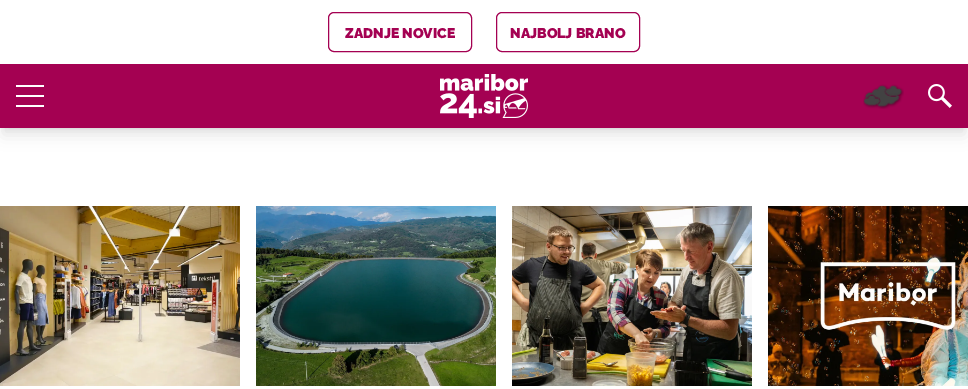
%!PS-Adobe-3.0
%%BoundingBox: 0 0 968 389
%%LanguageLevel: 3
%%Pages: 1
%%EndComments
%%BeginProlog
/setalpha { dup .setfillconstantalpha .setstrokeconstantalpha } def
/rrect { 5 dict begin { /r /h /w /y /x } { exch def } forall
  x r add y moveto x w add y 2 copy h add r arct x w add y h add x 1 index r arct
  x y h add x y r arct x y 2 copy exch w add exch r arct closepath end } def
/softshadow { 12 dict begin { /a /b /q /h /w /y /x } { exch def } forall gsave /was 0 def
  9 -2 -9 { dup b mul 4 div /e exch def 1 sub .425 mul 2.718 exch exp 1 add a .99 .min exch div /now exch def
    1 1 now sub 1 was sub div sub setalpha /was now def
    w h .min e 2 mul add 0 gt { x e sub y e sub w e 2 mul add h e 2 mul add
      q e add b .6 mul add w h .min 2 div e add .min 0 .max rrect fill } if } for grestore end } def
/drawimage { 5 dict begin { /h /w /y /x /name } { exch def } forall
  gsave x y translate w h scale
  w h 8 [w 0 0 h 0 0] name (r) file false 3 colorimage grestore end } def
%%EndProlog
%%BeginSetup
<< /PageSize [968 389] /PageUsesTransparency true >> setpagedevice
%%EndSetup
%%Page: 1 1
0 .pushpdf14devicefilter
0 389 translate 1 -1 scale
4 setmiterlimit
1 setgray
0 0 968 389 rectfill
0.643 0.004 0.322 setrgbcolor
328.5 12.5 143 39 5.5 rrect stroke
496.5 12.5 143 39 5.5 rrect stroke
0 setgray
4 72 960 56 0 3 0.1 softshadow
3 77 962 58 0 7.5 0.1 softshadow
0.643 0.004 0.322 setrgbcolor
0 64 968 64 rectfill
1 setgray
16 85 28 2 rectfill
16 95 28 2 rectfill
16 105 28 2 rectfill
(images/1.raw) 440 74 88 44 drawimage
(images/2.raw) 863 84 41 25 drawimage
(images/3.raw) 928 84 24 24 drawimage
(images/4.raw) 0 206 240 180 drawimage
(images/5.raw) 256 206 240 180 drawimage
(images/6.raw) 512 206 240 180 drawimage
(images/7.raw) 768 206 200 180 drawimage
/Raleway-Thin [14 0 0 -14 0 0] selectfont
0.643 0.004 0.322 setrgbcolor
345 38 moveto (ZADNJE NOVICE) show
510 38 moveto (NAJBOLJ BRANO) show
.poppdf14devicefilter showpage
%%EOF
